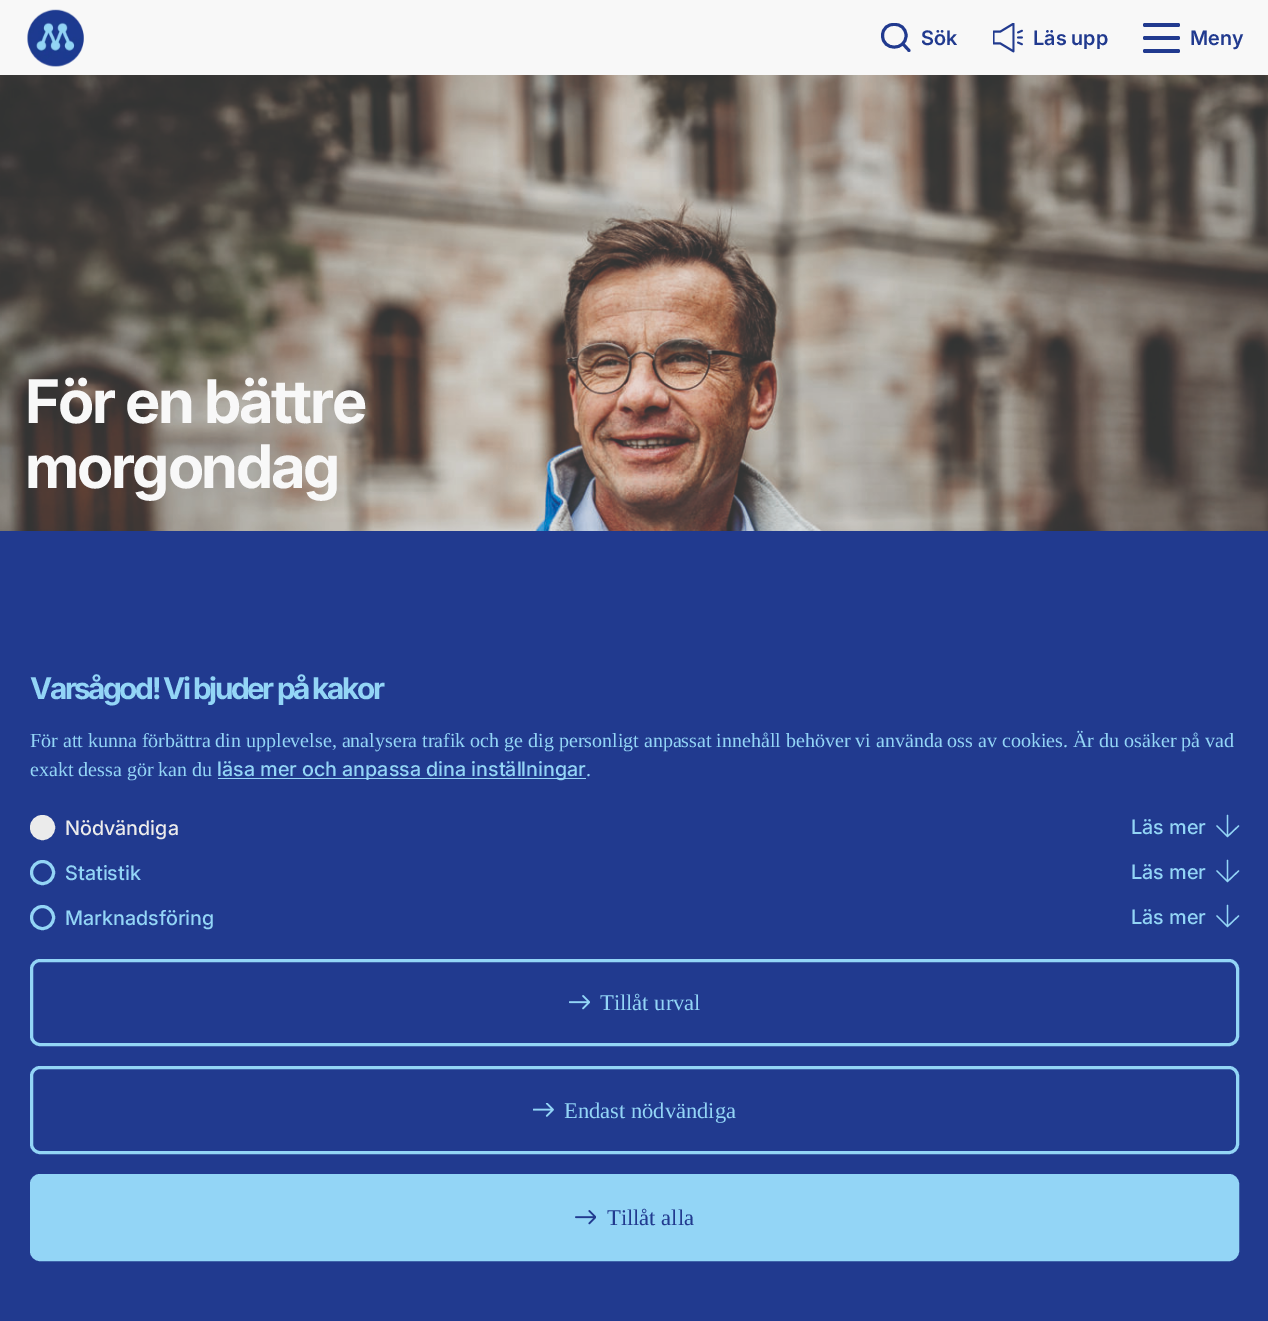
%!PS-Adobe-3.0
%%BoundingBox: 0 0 1268 1321
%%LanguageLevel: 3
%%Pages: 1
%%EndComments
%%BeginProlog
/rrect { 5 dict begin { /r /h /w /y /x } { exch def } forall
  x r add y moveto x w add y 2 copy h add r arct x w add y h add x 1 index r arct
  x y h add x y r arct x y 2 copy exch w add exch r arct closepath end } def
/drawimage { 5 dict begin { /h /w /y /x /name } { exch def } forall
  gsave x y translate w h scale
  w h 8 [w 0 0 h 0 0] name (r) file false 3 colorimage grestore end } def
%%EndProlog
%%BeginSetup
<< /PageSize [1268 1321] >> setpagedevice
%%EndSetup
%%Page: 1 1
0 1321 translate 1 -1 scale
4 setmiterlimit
0.973 setgray
0 0 1268 1321 rectfill
(images/1.raw) 27 9 57 58 drawimage
gsave
881 23 30 30 rectclip
0.129 0.227 0.561 setrgbcolor
2.9 setlinewidth
1 setlinecap
1 setlinejoin
newpath 906 35.5 moveto 906 51 882.5 51 882.5 35.5 curveto 882.5 20.5 906 20.5 906 35.5 curveto closepath stroke
grestore
0.129 0.227 0.561 setrgbcolor
2.9 setlinewidth
1 setlinecap
1 setlinejoin
newpath 909 50.5 moveto 903 44 lineto stroke
(images/2.raw) 993 23 30 30 drawimage
1143 23 37 4 2 rrect fill
1143 36 37 4 2 rrect fill
1143 49 37 4 2 rrect fill
(images/3.raw) 0 75 1268 456 drawimage
0 531 1268 790 rectfill
0.576 0.835 0.965 setrgbcolor
218 778 368 1 rectfill
0.922 setgray
newpath 42.5 827.5 11 0 360 arc closepath gsave fill grestore
3 setlinewidth
0 setlinecap
0 setlinejoin
stroke
0.576 0.835 0.965 setrgbcolor
1.3 setlinewidth
1 setlinecap
1 setlinejoin
newpath 1227.5 815.5 moveto 1227.5 836.5 lineto 1238.5 826 moveto 1227.5 836.5 lineto 1217 826 lineto stroke
3 setlinewidth
0 setlinecap
0 setlinejoin
newpath 42.5 872.5 11 0 360 arc closepath stroke
1.3 setlinewidth
1 setlinecap
1 setlinejoin
newpath 1227.5 860.5 moveto 1227.5 881.5 lineto 1238.5 871 moveto 1227.5 881.5 lineto 1217 871 lineto stroke
3 setlinewidth
0 setlinecap
0 setlinejoin
newpath 42.5 917.5 11 0 360 arc closepath stroke
1.3 setlinewidth
1 setlinecap
1 setlinejoin
newpath 1227.5 905.5 moveto 1227.5 926.5 lineto 1238.5 916 moveto 1227.5 926.5 lineto 1217 916 lineto stroke
3 setlinewidth
0 setlinecap
0 setlinejoin
31.5 960.5 1206 84 8.5 rrect stroke
(images/4.raw) 569 995 21 15 drawimage
31.5 1067.5 1206 85 8.5 rrect stroke
(images/5.raw) 533 1103 21 14 drawimage
31.5 1175.5 1206 84 8.5 rrect gsave fill grestore
stroke
(images/6.raw) 575 1210 21 15 drawimage
/Inter-SemiBold [20 0 0 -20 0 0] selectfont
0.129 0.227 0.561 setrgbcolor
921 45 moveto (Sök) show
1033 45 moveto (Läs upp) show
1190 45 moveto (Meny) show
/Inter-Bold [60 0 0 -60 0 0] selectfont
0.973 setgray
25 423 moveto -2.4 0 (För en bättre) ashow
25 488 moveto -2.4 0 (morgondag) ashow
/Inter-Bold [30 0 0 -30 0 0] selectfont
0.576 0.835 0.965 setrgbcolor
30 699 moveto -2.4 0 (Varsågod! Vi bjuder på kakor) ashow
/LiberationSerif-Regular [20 0 0 -20 0 0] selectfont
30 747 moveto (För att kunna förbättra din upplevelse, analysera trafik och ge dig personligt anpassat innehåll behöver vi använda oss av cookies. Är du osäker på vad) show
30 776 moveto (exakt dessa gör kan du) show
/Inter-Medium [20 0 0 -20 0 0] selectfont
217 776 moveto (läsa mer och anpassa dina inställningar) show
/LiberationSerif-Regular [20 0 0 -20 0 0] selectfont
586 776 moveto (.) show
/Inter-Medium [20 0 0 -20 0 0] selectfont
0.922 setgray
65 835 moveto (Nödvändiga) show
0.576 0.835 0.965 setrgbcolor
1131 834 moveto (Läs mer) show
65 880 moveto (Statistik) show
1131 879 moveto (Läs mer) show
65 925 moveto (Marknadsföring) show
1131 924 moveto (Läs mer) show
/LiberationSerif-Regular [22.5 0 0 -22.5 0 0] selectfont
600 1010 moveto (Tillåt urval) show
564 1118 moveto (Endast nödvändiga) show
0.129 0.227 0.561 setrgbcolor
607 1225 moveto (Tillåt alla) show
showpage
%%EOF
